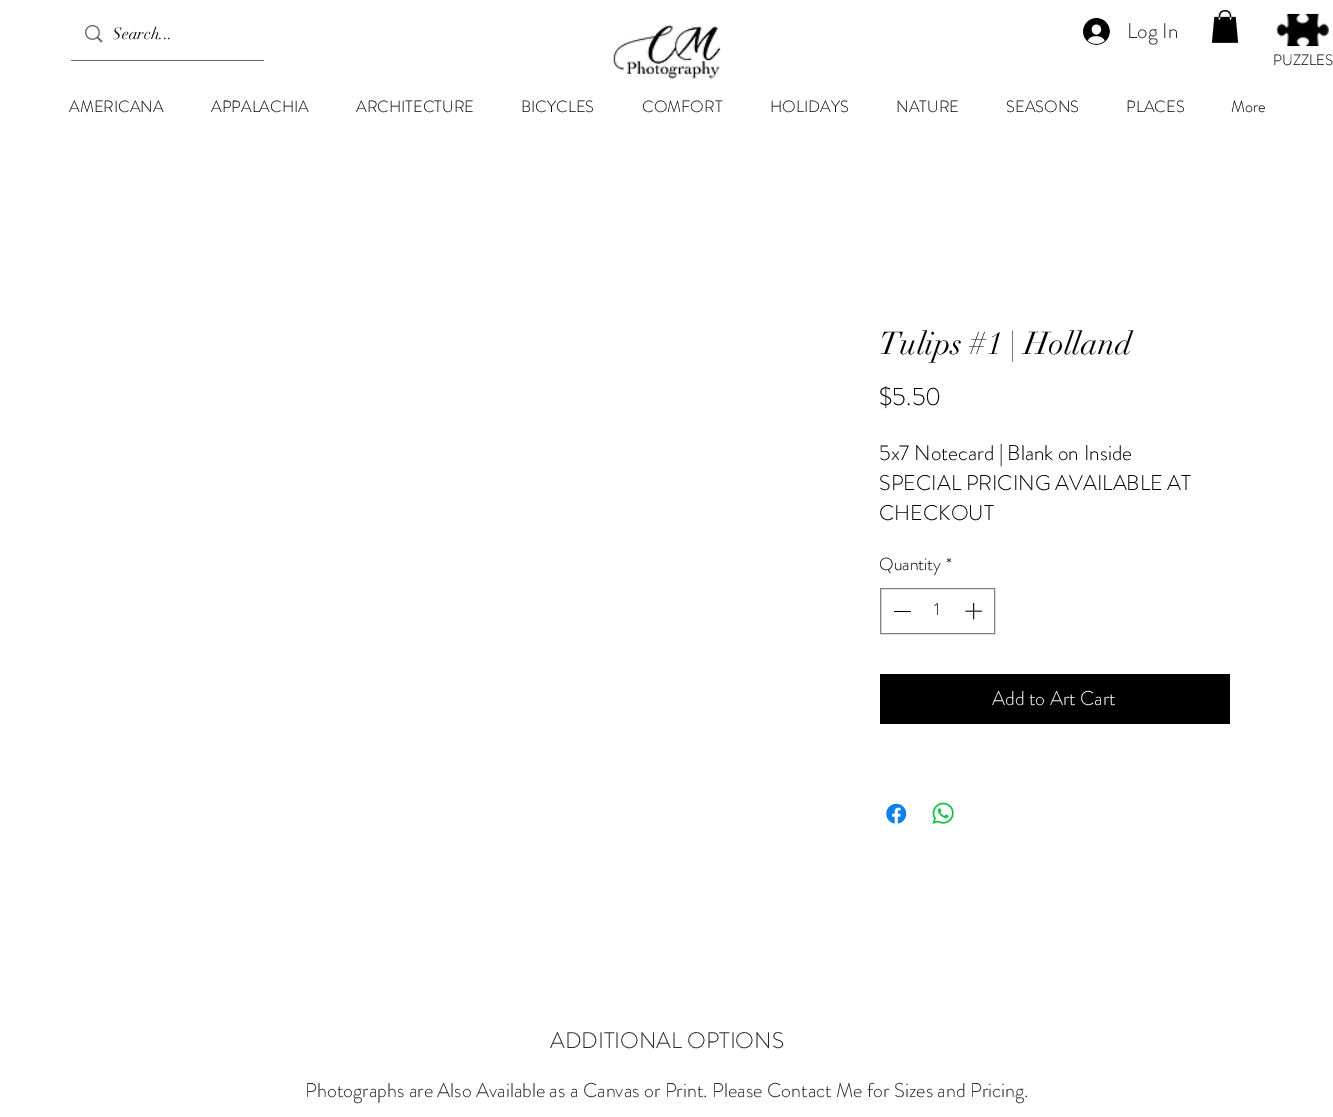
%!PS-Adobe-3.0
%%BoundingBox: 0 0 1333 1117
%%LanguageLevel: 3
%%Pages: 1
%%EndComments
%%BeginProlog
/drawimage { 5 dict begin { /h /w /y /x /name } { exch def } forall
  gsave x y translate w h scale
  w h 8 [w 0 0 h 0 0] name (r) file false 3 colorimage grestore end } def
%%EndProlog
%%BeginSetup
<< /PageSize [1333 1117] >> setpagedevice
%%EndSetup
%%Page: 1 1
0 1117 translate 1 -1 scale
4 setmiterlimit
1 setgray
0 0 1333 1117 rectfill
0.4 setgray
71 60 193 1 rectfill
(images/1.raw) 85 25 18 18 drawimage
(images/2.raw) 613 24 108 55 drawimage
(images/3.raw) 1083 18 27 27 drawimage
(images/4.raw) 1211 10 28 33 drawimage
(images/5.raw) 1276 13 53 34 drawimage
0.498 setgray
880.5 588.5 114 45 rectstroke
0 setgray
894 611 17 1 rectfill
(images/6.raw) 965 602 17 18 drawimage
880 674 350 50 rectfill
(images/7.raw) 886 803 21 21 drawimage
(images/8.raw) 932 802 22 22 drawimage
gsave
113 24 98 20 rectclip
/didot-Regular [16.25 0 0 -16.25 0 0] selectfont
112 39 moveto (Search...) show
grestore
/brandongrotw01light-Light [21.25 0 0 -21.25 0 0] selectfont
0.161 setgray
1127 38 moveto (Log In) show
/brandongrotw01light-Light [15 0 0 -15 0 0] selectfont
0 setgray
1273 65 moveto (PUZZLES) show
/brandongrotw01light-Light [16.25 0 0 -16.25 0 0] selectfont
69 112 moveto (AMERICANA) show
211 112 moveto (APPALACHIA) show
356 112 moveto (ARCHITECTURE) show
521 112 moveto (BICYCLES) show
642 112 moveto (COMFORT) show
770 112 moveto (HOLIDAYS) show
896 112 moveto (NATURE) show
1006 112 moveto (SEASONS) show
1126 112 moveto (PLACES) show
1231 112 moveto (More) show
/didot-Regular [31.25 0 0 -31.25 0 0] selectfont
879 354 moveto (Tulips #1 | Holland) show
/brandongrotw01light-Light [25 0 0 -25 0 0] selectfont
879 405 moveto ($5.50) show
/brandongrotw01light-Light [21.25 0 0 -21.25 0 0] selectfont
879 460 moveto (5x7 Notecard | Blank on Inside) show
879 490 moveto (SPECIAL PRICING AVAILABLE AT) show
879 520 moveto (CHECKOUT) show
/brandongrotw01light-Light [17.5 0 0 -17.5 0 0] selectfont
879 570 moveto (Quantity) show
946 570 moveto (*) show
934 615 moveto (1) show
/brandongrotw01light-Light [20 0 0 -20 0 0] selectfont
1 setgray
992 705 moveto (Add to Art Cart) show
/brandongrotw01light-Light [22.5 0 0 -22.5 0 0] selectfont
0.161 setgray
550 1048 moveto (ADDITIONAL OPTIONS) show
/brandongrotw01light-Light [20 0 0 -20 0 0] selectfont
305 1097 moveto (Photographs are Also Available as a Canvas or Print. Please Contact Me for Sizes and Pricing.) show
showpage
%%EOF
